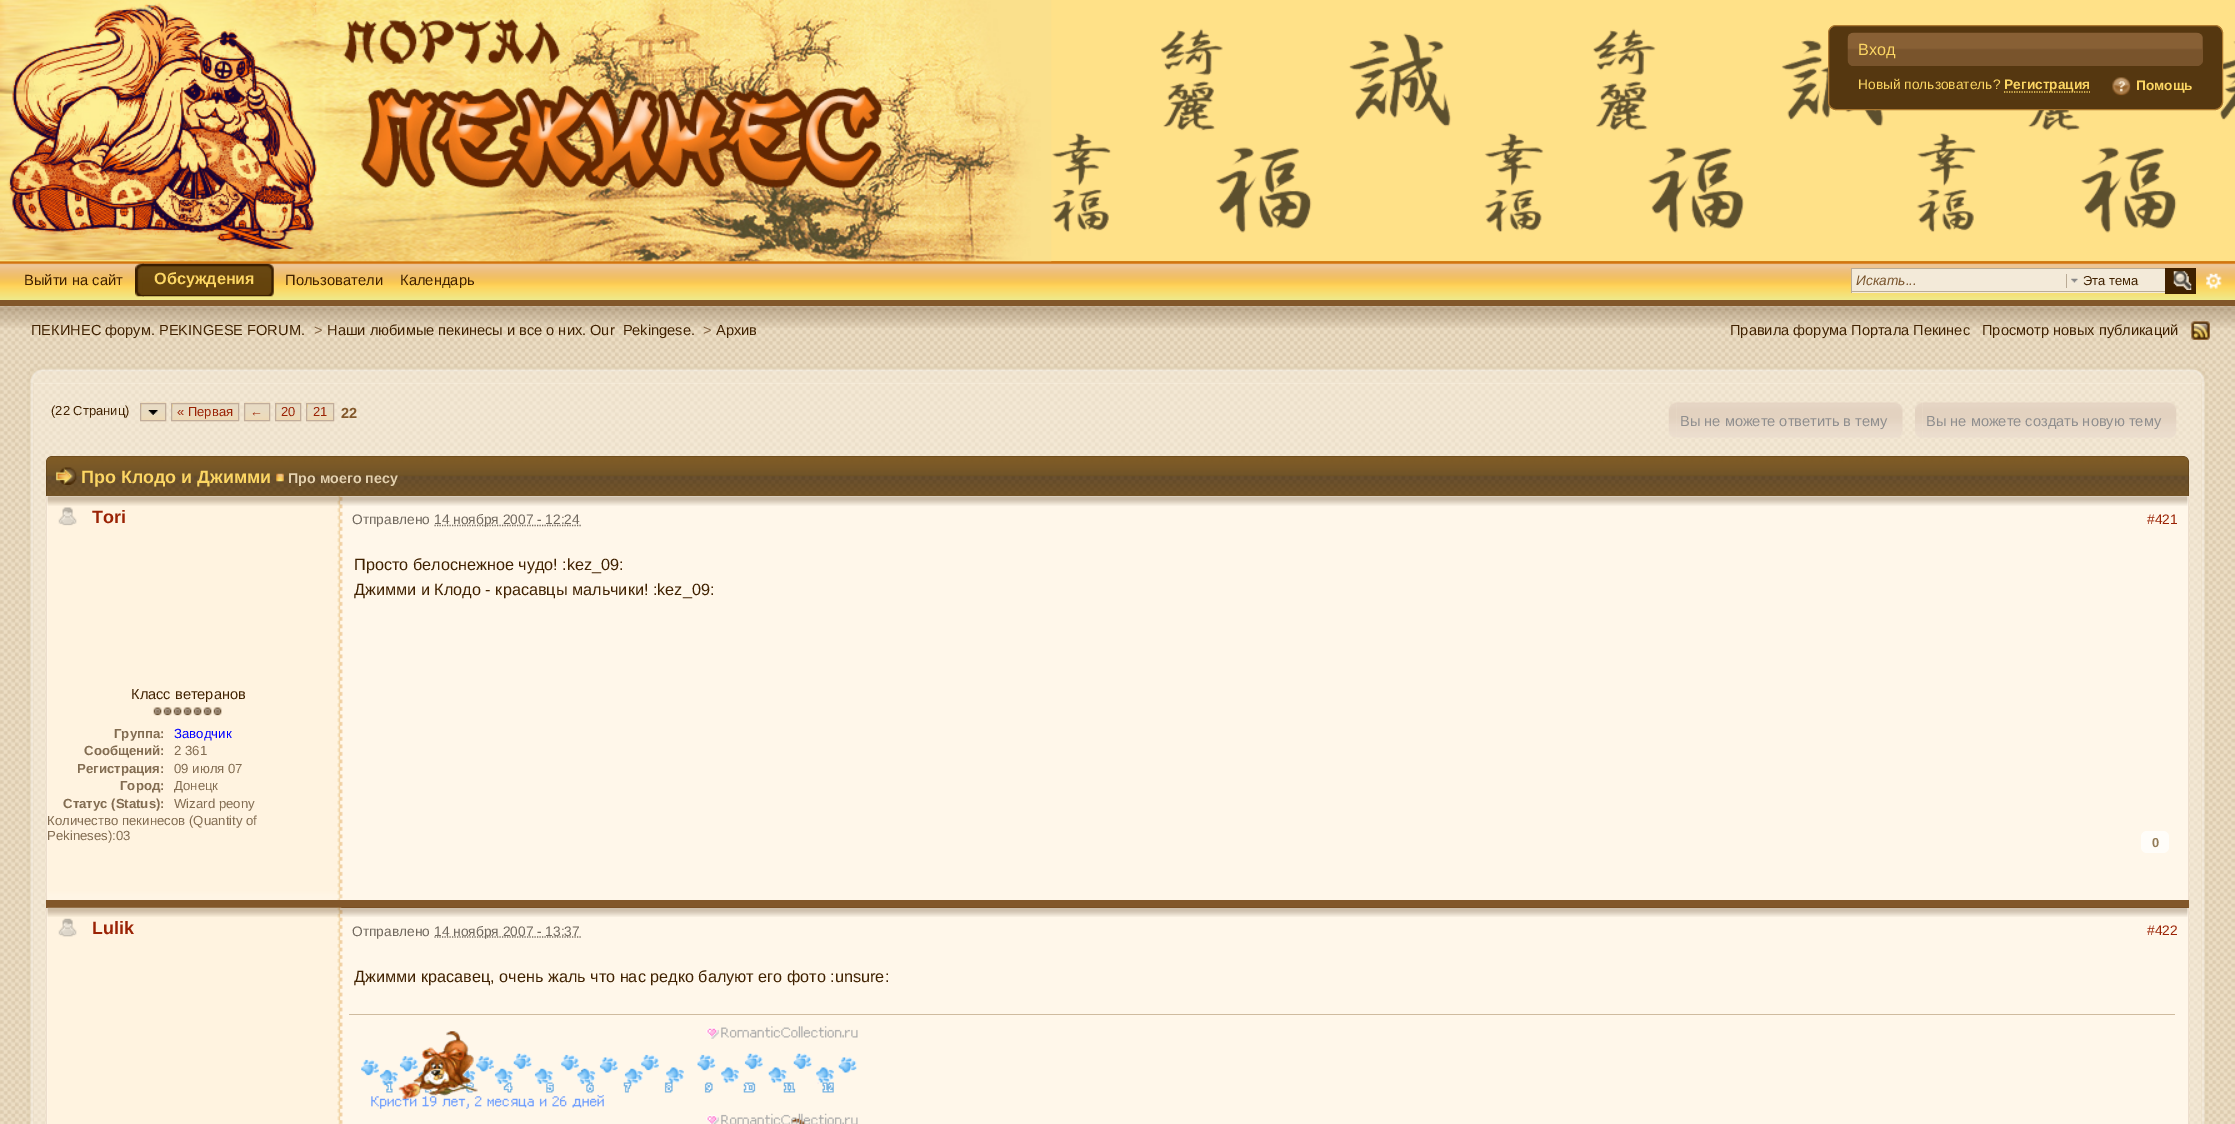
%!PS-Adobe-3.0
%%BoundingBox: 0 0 2235 1124
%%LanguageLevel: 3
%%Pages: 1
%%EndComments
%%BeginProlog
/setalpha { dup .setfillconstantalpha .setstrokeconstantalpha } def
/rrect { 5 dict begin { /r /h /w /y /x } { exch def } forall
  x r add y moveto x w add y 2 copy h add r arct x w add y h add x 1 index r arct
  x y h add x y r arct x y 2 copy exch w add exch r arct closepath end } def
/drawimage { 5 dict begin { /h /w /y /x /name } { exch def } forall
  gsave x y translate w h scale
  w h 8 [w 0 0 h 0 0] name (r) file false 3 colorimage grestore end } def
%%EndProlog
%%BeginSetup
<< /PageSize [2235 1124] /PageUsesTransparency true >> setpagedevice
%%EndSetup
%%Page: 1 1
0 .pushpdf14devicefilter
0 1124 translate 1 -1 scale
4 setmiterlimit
1 setgray
0 0 2235 1124 rectfill
(images/1.raw) 0 261 2235 863 drawimage
(images/2.raw) 0 0 2235 262 drawimage
(images/6.raw) 0 261 2235 39 drawimage
(images/3.raw) 0 0 1052 262 drawimage
0.333 0.216 0.063 setrgbcolor
1828.5 25.5 394 84 7.5 rrect gsave fill grestore
0.678 0.475 0.188 setrgbcolor
stroke
0.475 0.329 0.173 setrgbcolor
1848 33 355 33 6 rrect fill
(images/4.raw) 1847 32 355 34 drawimage
0.988 0.839 0.388 setrgbcolor
1.2 setlinewidth
[1.25 1.25] 0 setdash
newpath 2004 92 moveto 2090 92 lineto stroke
(images/5.raw) 2112 77 19 19 drawimage
0.51 0.341 0.165 setrgbcolor
0 300 2235 6 rectfill
(images/7.raw) 135 263 9 34 drawimage
(images/8.raw) 142 263 132 34 drawimage
0.953 0.918 0.851 setrgbcolor
1852 269 313 24 rectfill
0.729 0.671 0.584 setrgbcolor
1851 268 314 1 rectfill
1851 291 314 1 rectfill
1851 268 1 25 rectfill
(images/9.raw) 2071 278 7 5 drawimage
2066 274 1 14 rectfill
0.251 0.129 0 setrgbcolor
2165 268 31 26 rectfill
(images/10.raw) 2173 271 19 19 drawimage
(images/11.raw) 2206 273 16 16 drawimage
(images/12.raw) 0 306 2235 22 drawimage
(images/13.raw) 2191 321 19 19 drawimage
(images/14.raw) 27 366 18 18 drawimage
(images/15.raw) 2190 366 18 18 drawimage
(images/16.raw) 45 366 2145 18 drawimage
(images/17.raw) 27 383 7 741 drawimage
(images/18.raw) 2201 384 7 740 drawimage
0.5 setalpha
0.984 0.953 0.898 setrgbcolor
34 383 2167 741 rectfill
1 setalpha
0.996 0.839 0.369 setrgbcolor
141 404 1 6 rectfill
(images/19.raw) 140 402 27 20 drawimage
0.757 0.678 0.608 setrgbcolor
1 setlinewidth
[] 0 setdash
140.5 403.5 25 17 rectstroke
(images/20.raw) 148 410 10 5 drawimage
0.996 0.839 0.369 setrgbcolor
172 404 1 6 rectfill
(images/21.raw) 171 402 68 20 drawimage
0.757 0.678 0.608 setrgbcolor
171.5 403.5 67 17 rectstroke
(images/22.raw) 243 402 27 20 drawimage
244.5 403.5 25 17 rectstroke
0.996 0.839 0.369 setrgbcolor
276 404 1 6 rectfill
(images/19.raw) 275 402 27 20 drawimage
0.757 0.678 0.608 setrgbcolor
275.5 403.5 25 17 rectstroke
0.996 0.839 0.369 setrgbcolor
307 404 1 6 rectfill
(images/23.raw) 306 402 28 20 drawimage
0.757 0.678 0.608 setrgbcolor
306.5 403.5 27 17 rectstroke
(images/24.raw) 1668 402 9 35 drawimage
(images/25.raw) 1676 402 227 36 drawimage
(images/26.raw) 1915 402 8 36 drawimage
(images/27.raw) 1922 402 255 36 drawimage
0.341 0.216 0.059 setrgbcolor
newpath 52 456 moveto 2183 456 lineto 2186.5 456 2189 458.5 2189 462 curveto 2189 496 lineto 46 496 lineto 46 462 lineto 46 458.5 48.5 456 52 456 curveto closepath fill
(images/28.raw) 46 456 2143 40 drawimage
(images/29.raw) 56 467 21 18 drawimage
(images/30.raw) 276 473 8 9 drawimage
1 0.969 0.918 setrgbcolor
47 496 2141 404 rectfill
0.51 0.341 0.165 setrgbcolor
46 900 2143 8 rectfill
(images/31.raw) 47 496 296 404 drawimage
0.929 0.871 0.808 setrgbcolor
2188 496 1 404 rectfill
46 496 1 404 rectfill
(images/32.raw) 47 496 2141 10 drawimage
(images/33.raw) 58 507 19 19 drawimage
0.439 0.408 0.369 setrgbcolor
1.2 setlinewidth
[1.25 1.25] 0 setdash
newpath 434.5 525.5 moveto 581 525.5 lineto stroke
(images/34.raw) 153 707 9 9 drawimage
(images/34.raw) 163 707 9 9 drawimage
(images/34.raw) 173 707 9 9 drawimage
(images/34.raw) 183 707 9 9 drawimage
(images/34.raw) 193 707 9 9 drawimage
(images/34.raw) 203 707 9 9 drawimage
(images/34.raw) 213 707 9 9 drawimage
1 0.992 0.976 setrgbcolor
2141 831 28 22 6 rrect fill
(images/35.raw) 48 891 295 9 drawimage
1 0.969 0.918 setrgbcolor
47 908 2141 216 rectfill
(images/36.raw) 47 907 296 217 drawimage
0.929 0.871 0.808 setrgbcolor
2188 908 1 216 rectfill
46 908 1 216 rectfill
(images/37.raw) 47 907 2141 10 drawimage
(images/38.raw) 58 918 19 19 drawimage
0.439 0.408 0.369 setrgbcolor
newpath 434.5 937 moveto 581 937 lineto stroke
0.812 0.733 0.624 setrgbcolor
349 1014 1826 1 rectfill
(images/39.raw) 361 1026 497 83 drawimage
(images/40.raw) 706 1113 152 11 drawimage
/LiberationSans-Regular [16.25 0 0 -16.25 0 0] selectfont
0.988 0.839 0.388 setrgbcolor
1858 55 moveto (Вход) show
/LiberationSans-Regular [13.75 0 0 -13.75 0 0] selectfont
1858 89 moveto (Новый пользователь?) show
/LiberationSans-Bold [13.75 0 0 -13.75 0 0] selectfont
2004 89 moveto (Регистрация) show
2136 90 moveto (Помощь) show
/LiberationSans-Regular [14.75 0 0 -14.75 0 0] selectfont
0.251 0.129 0 setrgbcolor
24 285 moveto (Выйти на сайт) show
/LiberationSans-Bold [16.25 0 0 -16.25 0 0] selectfont
0.988 0.839 0.388 setrgbcolor
154 284 moveto (Обсуждения) show
/LiberationSans-Regular [14.75 0 0 -14.75 0 0] selectfont
0.251 0.129 0 setrgbcolor
285 285 moveto (Пользователи) show
400 285 moveto (Календарь) show
/LiberationSans-Italic [13.75 0 0 -13.75 0 0] selectfont
0.475 0.329 0.173 setrgbcolor
1856 285 moveto (Искать...) show
/LiberationSans-Regular [13 0 0 -13 0 0] selectfont
0.251 0.129 0 setrgbcolor
2083 285 moveto (Эта тема) show
/LiberationSans-Regular [14.6 0 0 -14.6 0 0] selectfont
31 335 moveto (ПЕКИНЕС форум. PEKINGESE FORUM.) show
0.502 0.376 0.247 setrgbcolor
314 335 moveto (>) show
0.251 0.129 0 setrgbcolor
327 335 moveto (Наши любимые пекинесы и все о них. Our  Pekingese.) show
0.502 0.376 0.247 setrgbcolor
703 335 moveto (>) show
0.251 0.129 0 setrgbcolor
716 335 moveto (Архив) show
1730 335 moveto (Правила форума Портала Пекинес) show
1982 335 moveto (Просмотр новых публикаций) show
/LiberationSans-Regular [13 0 0 -13 0 0] selectfont
51 415 moveto (\(22 Страниц\)) show
0.604 0.133 0.016 setrgbcolor
177 416 moveto (« Первая) show
250 416 moveto (←) show
281 416 moveto (20) show
313 416 moveto (21) show
/LiberationSans-Bold [14.6 0 0 -14.6 0 0] selectfont
0.51 0.341 0.165 setrgbcolor
341 418 moveto (22) show
/LiberationSans-Regular [14.6 0 0 -14.6 0 0] selectfont
0.561 0.557 0.557 setrgbcolor
1680 426 moveto (Вы не можете ответить в тему) show
1926 426 moveto (Вы не можете создать новую тему) show
/LiberationSans-Bold [17.9 0 0 -17.9 0 0] selectfont
0.988 0.839 0.388 setrgbcolor
81 483 moveto (Про Клодо и Джимми) show
/LiberationSans-Bold [14.25 0 0 -14.25 0 0] selectfont
0.894 0.82 0.682 setrgbcolor
288 483 moveto (Про моего песу) show
/LiberationSans-Bold [17.9 0 0 -17.9 0 0] selectfont
0.604 0.133 0.016 setrgbcolor
92 523 moveto (Tori) show
/LiberationSans-Regular [13.75 0 0 -13.75 0 0] selectfont
2147 524 moveto (#421) show
0.439 0.408 0.369 setrgbcolor
352 524 moveto (Отправлено) show
434 524 moveto (14 ноября 2007 - 12:24) show
/LiberationSans-Regular [16.25 0 0 -16.25 0 0] selectfont
0.251 0.129 0 setrgbcolor
354 570 moveto (Просто белоснежное чудо! :kez_09:) show
354 595 moveto (Джимми и Клодо - красавцы мальчики! :kez_09:) show
/LiberationSans-Regular [14.6 0 0 -14.6 0 0] selectfont
131 699 moveto (Класс ветеранов) show
/LiberationSans-Bold [13.2 0 0 -13.2 0 0] selectfont
0.51 0.424 0.318 setrgbcolor
114 738 moveto (Группа:) show
/LiberationSans-Regular [13.2 0 0 -13.2 0 0] selectfont
0 0 1 setrgbcolor
174 738 moveto (Заводчик) show
/LiberationSans-Bold [13.2 0 0 -13.2 0 0] selectfont
0.51 0.424 0.318 setrgbcolor
84 755 moveto (Сообщений:) show
/LiberationSans-Regular [13.2 0 0 -13.2 0 0] selectfont
174 755 moveto (2 361) show
/LiberationSans-Bold [13.2 0 0 -13.2 0 0] selectfont
77 773 moveto (Регистрация:) show
/LiberationSans-Regular [13.2 0 0 -13.2 0 0] selectfont
174 773 moveto (09 июля 07) show
/LiberationSans-Bold [13.2 0 0 -13.2 0 0] selectfont
120 790 moveto (Город:) show
/LiberationSans-Regular [13.2 0 0 -13.2 0 0] selectfont
174 790 moveto (Донецк) show
/LiberationSans-Bold [13.2 0 0 -13.2 0 0] selectfont
63 808 moveto (Статус \(Status\):) show
/LiberationSans-Regular [13.2 0 0 -13.2 0 0] selectfont
174 808 moveto (Wizard peony) show
47 825 moveto (Количество пекинесов \(Quantity of) show
47 840 moveto (Pekineses\):03) show
/LiberationSans-Bold [13 0 0 -13 0 0] selectfont
0.576 0.486 0.345 setrgbcolor
2152 847 moveto (0) show
/LiberationSans-Bold [17.9 0 0 -17.9 0 0] selectfont
0.604 0.133 0.016 setrgbcolor
92 934 moveto (Lulik) show
/LiberationSans-Regular [13.75 0 0 -13.75 0 0] selectfont
2147 935 moveto (#422) show
0.439 0.408 0.369 setrgbcolor
352 936 moveto (Отправлено) show
434 936 moveto (14 ноября 2007 - 13:37) show
/LiberationSans-Regular [16.25 0 0 -16.25 0 0] selectfont
0.251 0.129 0 setrgbcolor
354 982 moveto (Джимми красавец, очень жаль что нас редко балуют его фото :unsure:) show
.poppdf14devicefilter showpage
%%EOF
